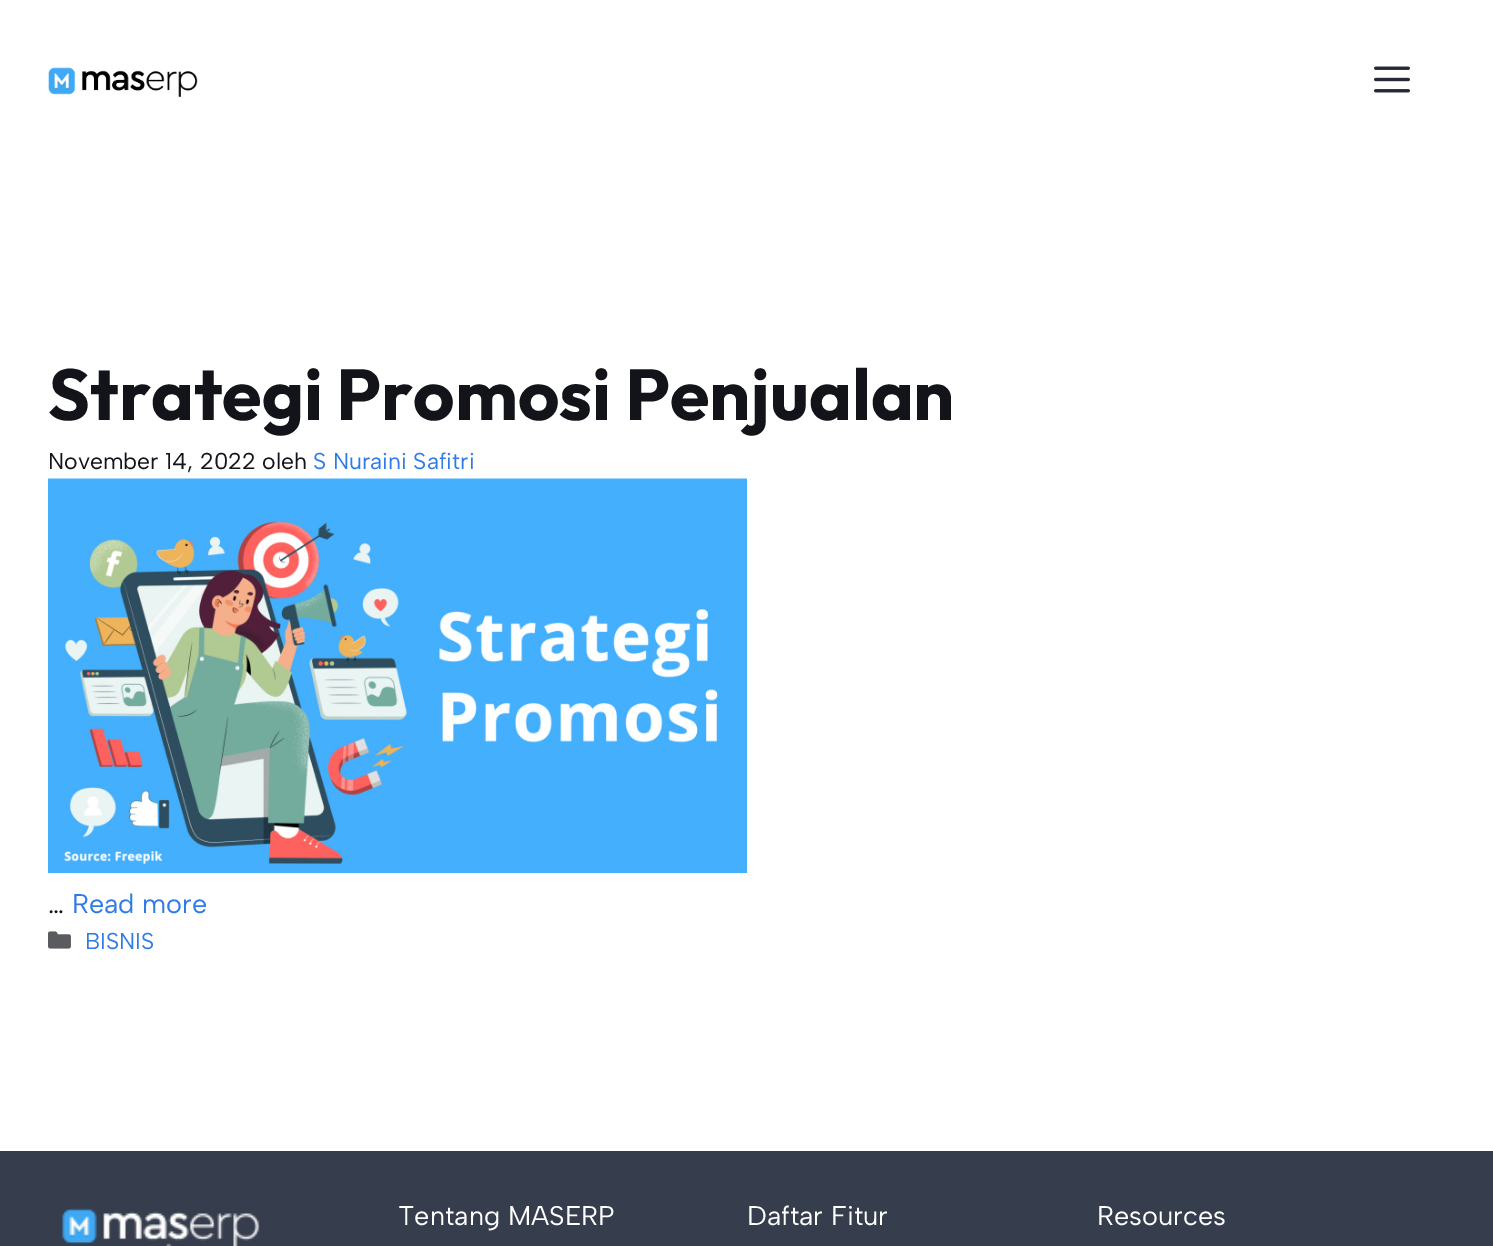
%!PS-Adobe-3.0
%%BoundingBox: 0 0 1493 1246
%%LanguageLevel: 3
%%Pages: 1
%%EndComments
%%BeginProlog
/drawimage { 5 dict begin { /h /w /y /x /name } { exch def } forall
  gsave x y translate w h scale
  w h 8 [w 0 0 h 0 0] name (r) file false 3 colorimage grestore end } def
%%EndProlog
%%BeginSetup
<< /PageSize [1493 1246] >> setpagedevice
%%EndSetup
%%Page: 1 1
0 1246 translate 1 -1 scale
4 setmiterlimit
1 setgray
0 0 1493 1246 rectfill
(images/1.raw) 48 67 150 30 drawimage
(images/2.raw) 1374 66 36 27 drawimage
(images/3.raw) 48 478 699 395 drawimage
(images/4.raw) 48 931 23 18 drawimage
0.212 0.239 0.302 setrgbcolor
0 1151 1493 95 rectfill
(images/5.raw) 62 1208 198 38 drawimage
/Outfit-Thin [72 0 0 -72 0 0] selectfont
0.071 0.078 0.102 setrgbcolor
48 420 moveto (Strategi Promosi Penjualan) show
/AlbertSans-Regular [23 0 0 -23 0 0] selectfont
48 469 moveto (November 14, 2022 oleh) show
0.18 0.478 0.902 setrgbcolor
313 469 moveto (S Nuraini Safitri) show
/AlbertSans-Regular [27 0 0 -27 0 0] selectfont
0.071 0.078 0.102 setrgbcolor
48 913 moveto (…) show
0.18 0.478 0.902 setrgbcolor
72 913 moveto (Read more) show
/AlbertSans-Regular [23 0 0 -23 0 0] selectfont
85 949 moveto (BISNIS) show
/AlbertSans-Regular [27 0 0 -27 0 0] selectfont
1 setgray
398 1225 moveto (Tentang MASERP) show
747 1225 moveto (Daftar Fitur) show
1097 1225 moveto (Resources) show
showpage
%%EOF
